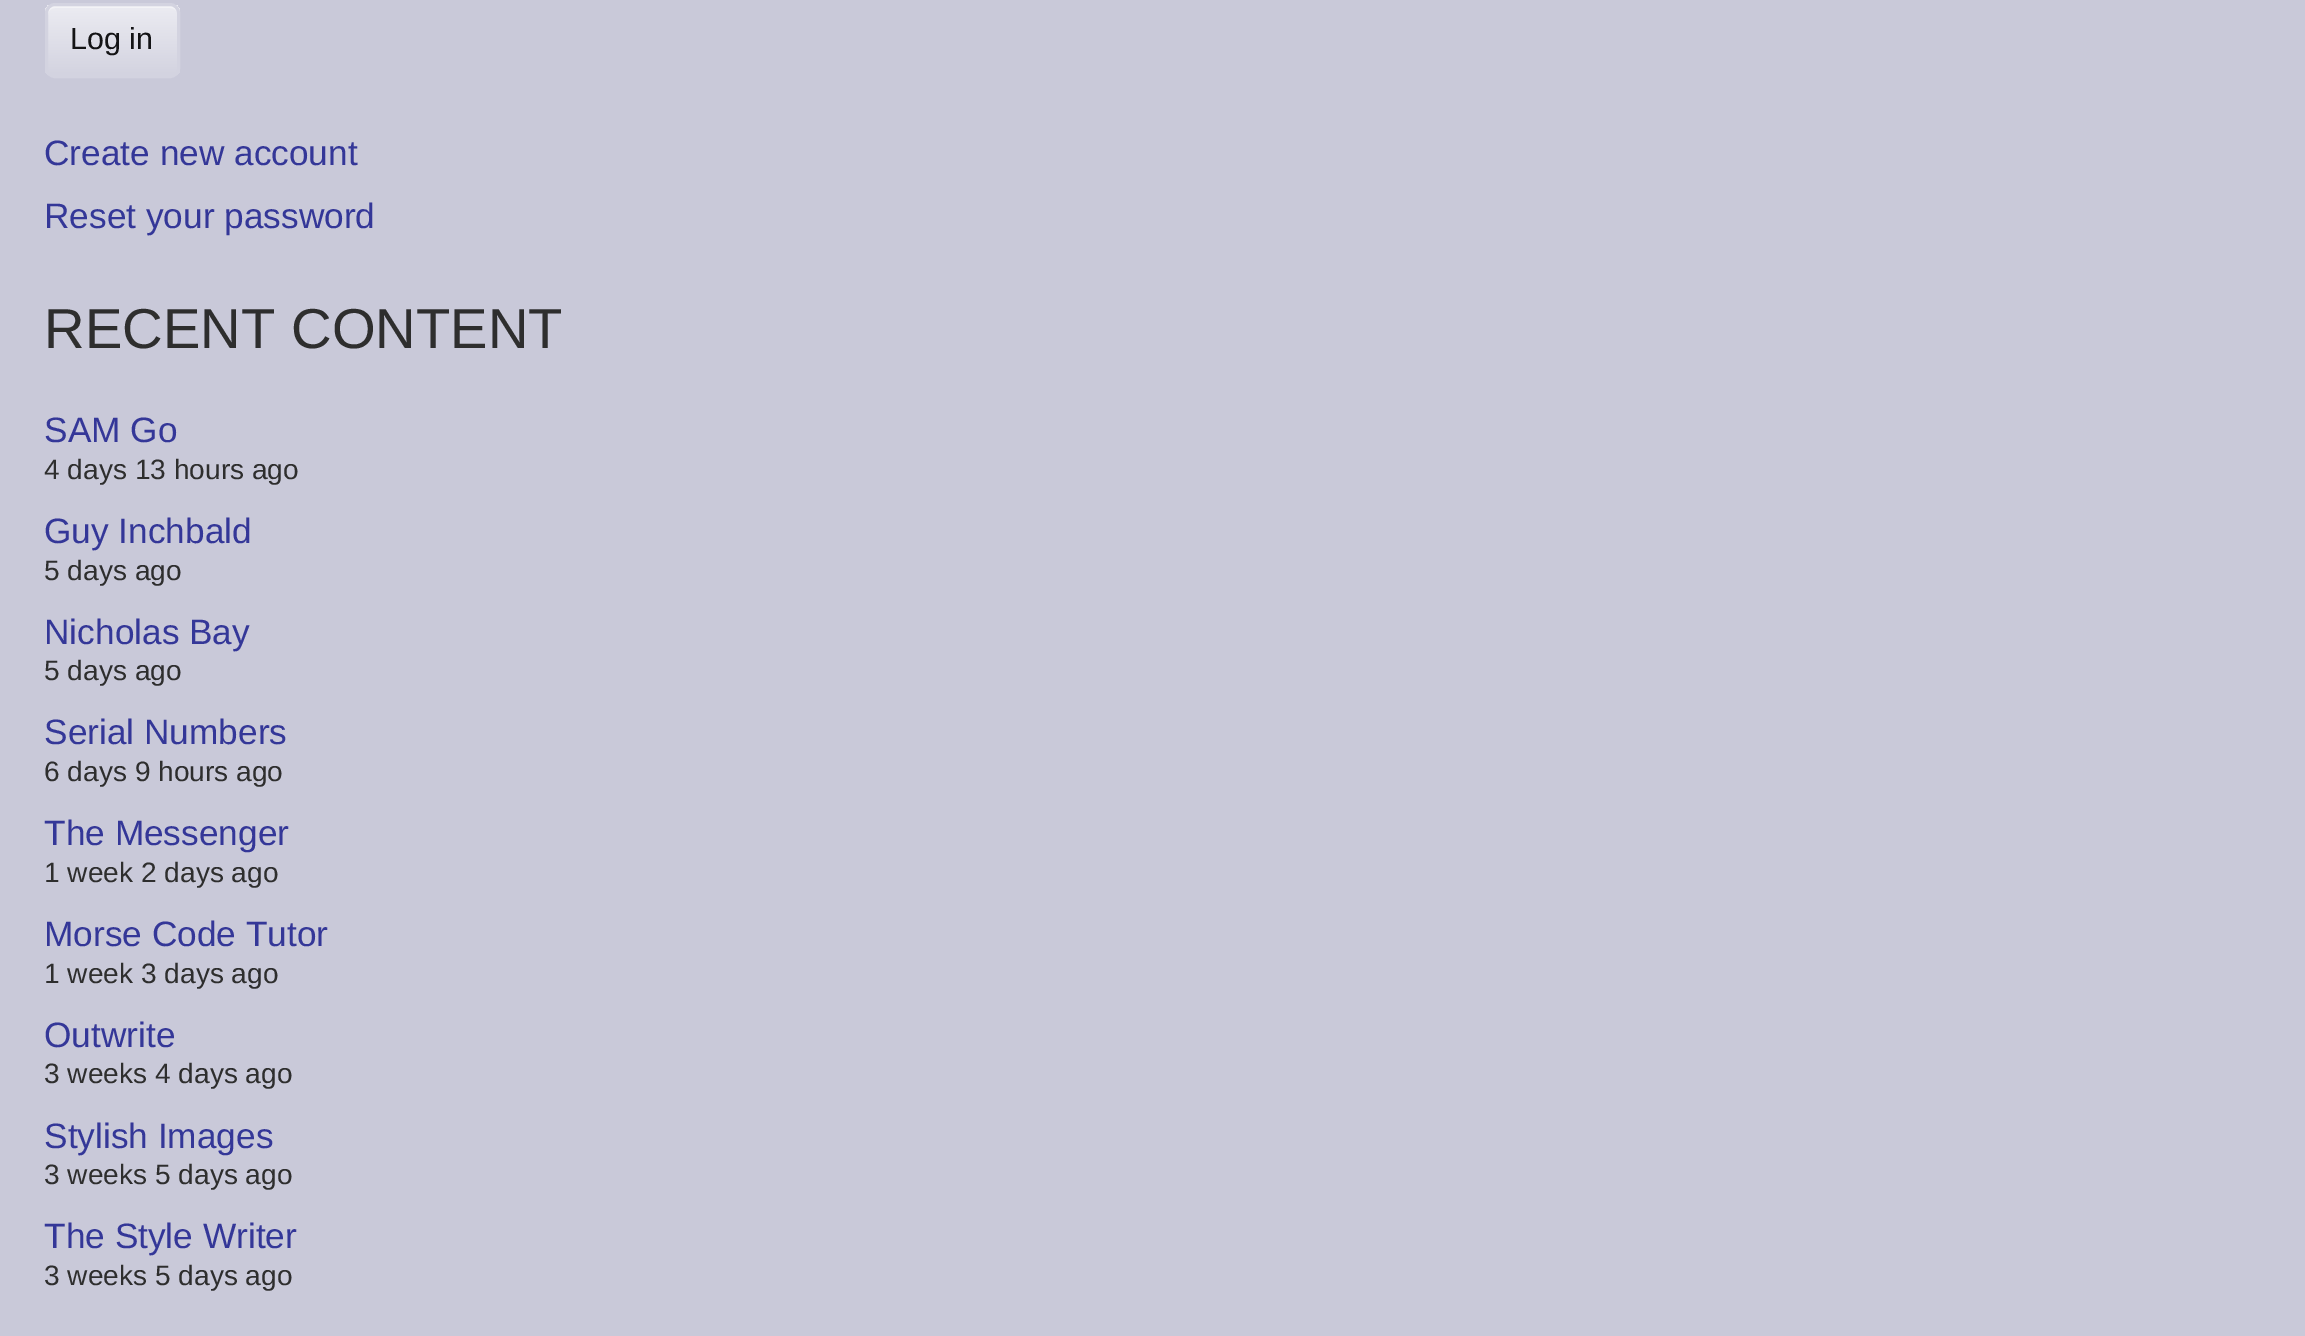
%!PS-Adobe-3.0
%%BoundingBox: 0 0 2305 1336
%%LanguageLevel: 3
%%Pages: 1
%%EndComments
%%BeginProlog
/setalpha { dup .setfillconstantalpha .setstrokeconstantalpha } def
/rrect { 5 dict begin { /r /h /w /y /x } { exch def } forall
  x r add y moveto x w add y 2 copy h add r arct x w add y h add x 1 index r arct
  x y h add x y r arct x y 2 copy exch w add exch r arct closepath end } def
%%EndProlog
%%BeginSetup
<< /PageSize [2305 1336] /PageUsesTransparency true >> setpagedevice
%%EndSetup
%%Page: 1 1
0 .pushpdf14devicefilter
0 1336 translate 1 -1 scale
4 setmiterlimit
0.788 0.788 0.851 setrgbcolor
0 0 2305 1336 rectfill
gsave
45 3 135 75 10 rrect clip newpath
gsave newpath 45 5 moveto 180 5 lineto 180 75 lineto 45 75 lineto closepath clip newpath
<< /ShadingType 2 /ColorSpace /DeviceRGB /Coords [113 5 113 75] /Extend [true true] /Function << /FunctionType 2 /Domain [0 1] /C0 [0.925 0.925 0.949] /C1 [0.827 0.827 0.878] /N 1 >> >> shfill grestore
grestore
0.5 setalpha
0.98 0.98 0.984 setrgbcolor
newpath 55 8 moveto 170 8 lineto 174 8 178 11 178 15 curveto 178 0 162 5 151 5 curveto 75 5 lineto 64 5 48 0 48 15 curveto 48 11 51 8 55 8 curveto closepath fill
1 setalpha
0.827 0.827 0.878 setrgbcolor
3 setlinewidth
46.5 4.5 132 72 8.5 rrect stroke
/LiberationSans-Regular [30.5 0 0 -30.5 0 0] selectfont
0.078 0.078 0.086 setrgbcolor
70 49 moveto (Log in) show
/LiberationSans-Regular [35.25 0 0 -35.25 0 0] selectfont
0.204 0.216 0.596 setrgbcolor
44 165 moveto (Create new account) show
44 228 moveto (Reset your password) show
/LiberationSans-Regular [56.25 0 0 -56.25 0 0] selectfont
0.18 setgray
44 348 moveto (RECENT CONTENT) show
/LiberationSans-Regular [35.25 0 0 -35.25 0 0] selectfont
0.204 0.216 0.596 setrgbcolor
44 442 moveto (SAM Go) show
/LiberationSans-Regular [28.1 0 0 -28.1 0 0] selectfont
0.18 setgray
44 479 moveto (4 days 13 hours ago) show
/LiberationSans-Regular [35.25 0 0 -35.25 0 0] selectfont
0.204 0.216 0.596 setrgbcolor
44 543 moveto (Guy Inchbald) show
/LiberationSans-Regular [28.1 0 0 -28.1 0 0] selectfont
0.18 setgray
44 580 moveto (5 days ago) show
/LiberationSans-Regular [35.25 0 0 -35.25 0 0] selectfont
0.204 0.216 0.596 setrgbcolor
44 644 moveto (Nicholas Bay) show
/LiberationSans-Regular [28.1 0 0 -28.1 0 0] selectfont
0.18 setgray
44 680 moveto (5 days ago) show
/LiberationSans-Regular [35.25 0 0 -35.25 0 0] selectfont
0.204 0.216 0.596 setrgbcolor
44 744 moveto (Serial Numbers) show
/LiberationSans-Regular [28.1 0 0 -28.1 0 0] selectfont
0.18 setgray
44 781 moveto (6 days 9 hours ago) show
/LiberationSans-Regular [35.25 0 0 -35.25 0 0] selectfont
0.204 0.216 0.596 setrgbcolor
44 845 moveto (The Messenger) show
/LiberationSans-Regular [28.1 0 0 -28.1 0 0] selectfont
0.18 setgray
44 882 moveto (1 week 2 days ago) show
/LiberationSans-Regular [35.25 0 0 -35.25 0 0] selectfont
0.204 0.216 0.596 setrgbcolor
44 946 moveto (Morse Code Tutor) show
/LiberationSans-Regular [28.1 0 0 -28.1 0 0] selectfont
0.18 setgray
44 983 moveto (1 week 3 days ago) show
/LiberationSans-Regular [35.25 0 0 -35.25 0 0] selectfont
0.204 0.216 0.596 setrgbcolor
44 1047 moveto (Outwrite) show
/LiberationSans-Regular [28.1 0 0 -28.1 0 0] selectfont
0.18 setgray
44 1083 moveto (3 weeks 4 days ago) show
/LiberationSans-Regular [35.25 0 0 -35.25 0 0] selectfont
0.204 0.216 0.596 setrgbcolor
44 1148 moveto (Stylish Images) show
/LiberationSans-Regular [28.1 0 0 -28.1 0 0] selectfont
0.18 setgray
44 1184 moveto (3 weeks 5 days ago) show
/LiberationSans-Regular [35.25 0 0 -35.25 0 0] selectfont
0.204 0.216 0.596 setrgbcolor
44 1248 moveto (The Style Writer) show
/LiberationSans-Regular [28.1 0 0 -28.1 0 0] selectfont
0.18 setgray
44 1285 moveto (3 weeks 5 days ago) show
.poppdf14devicefilter showpage
%%EOF
